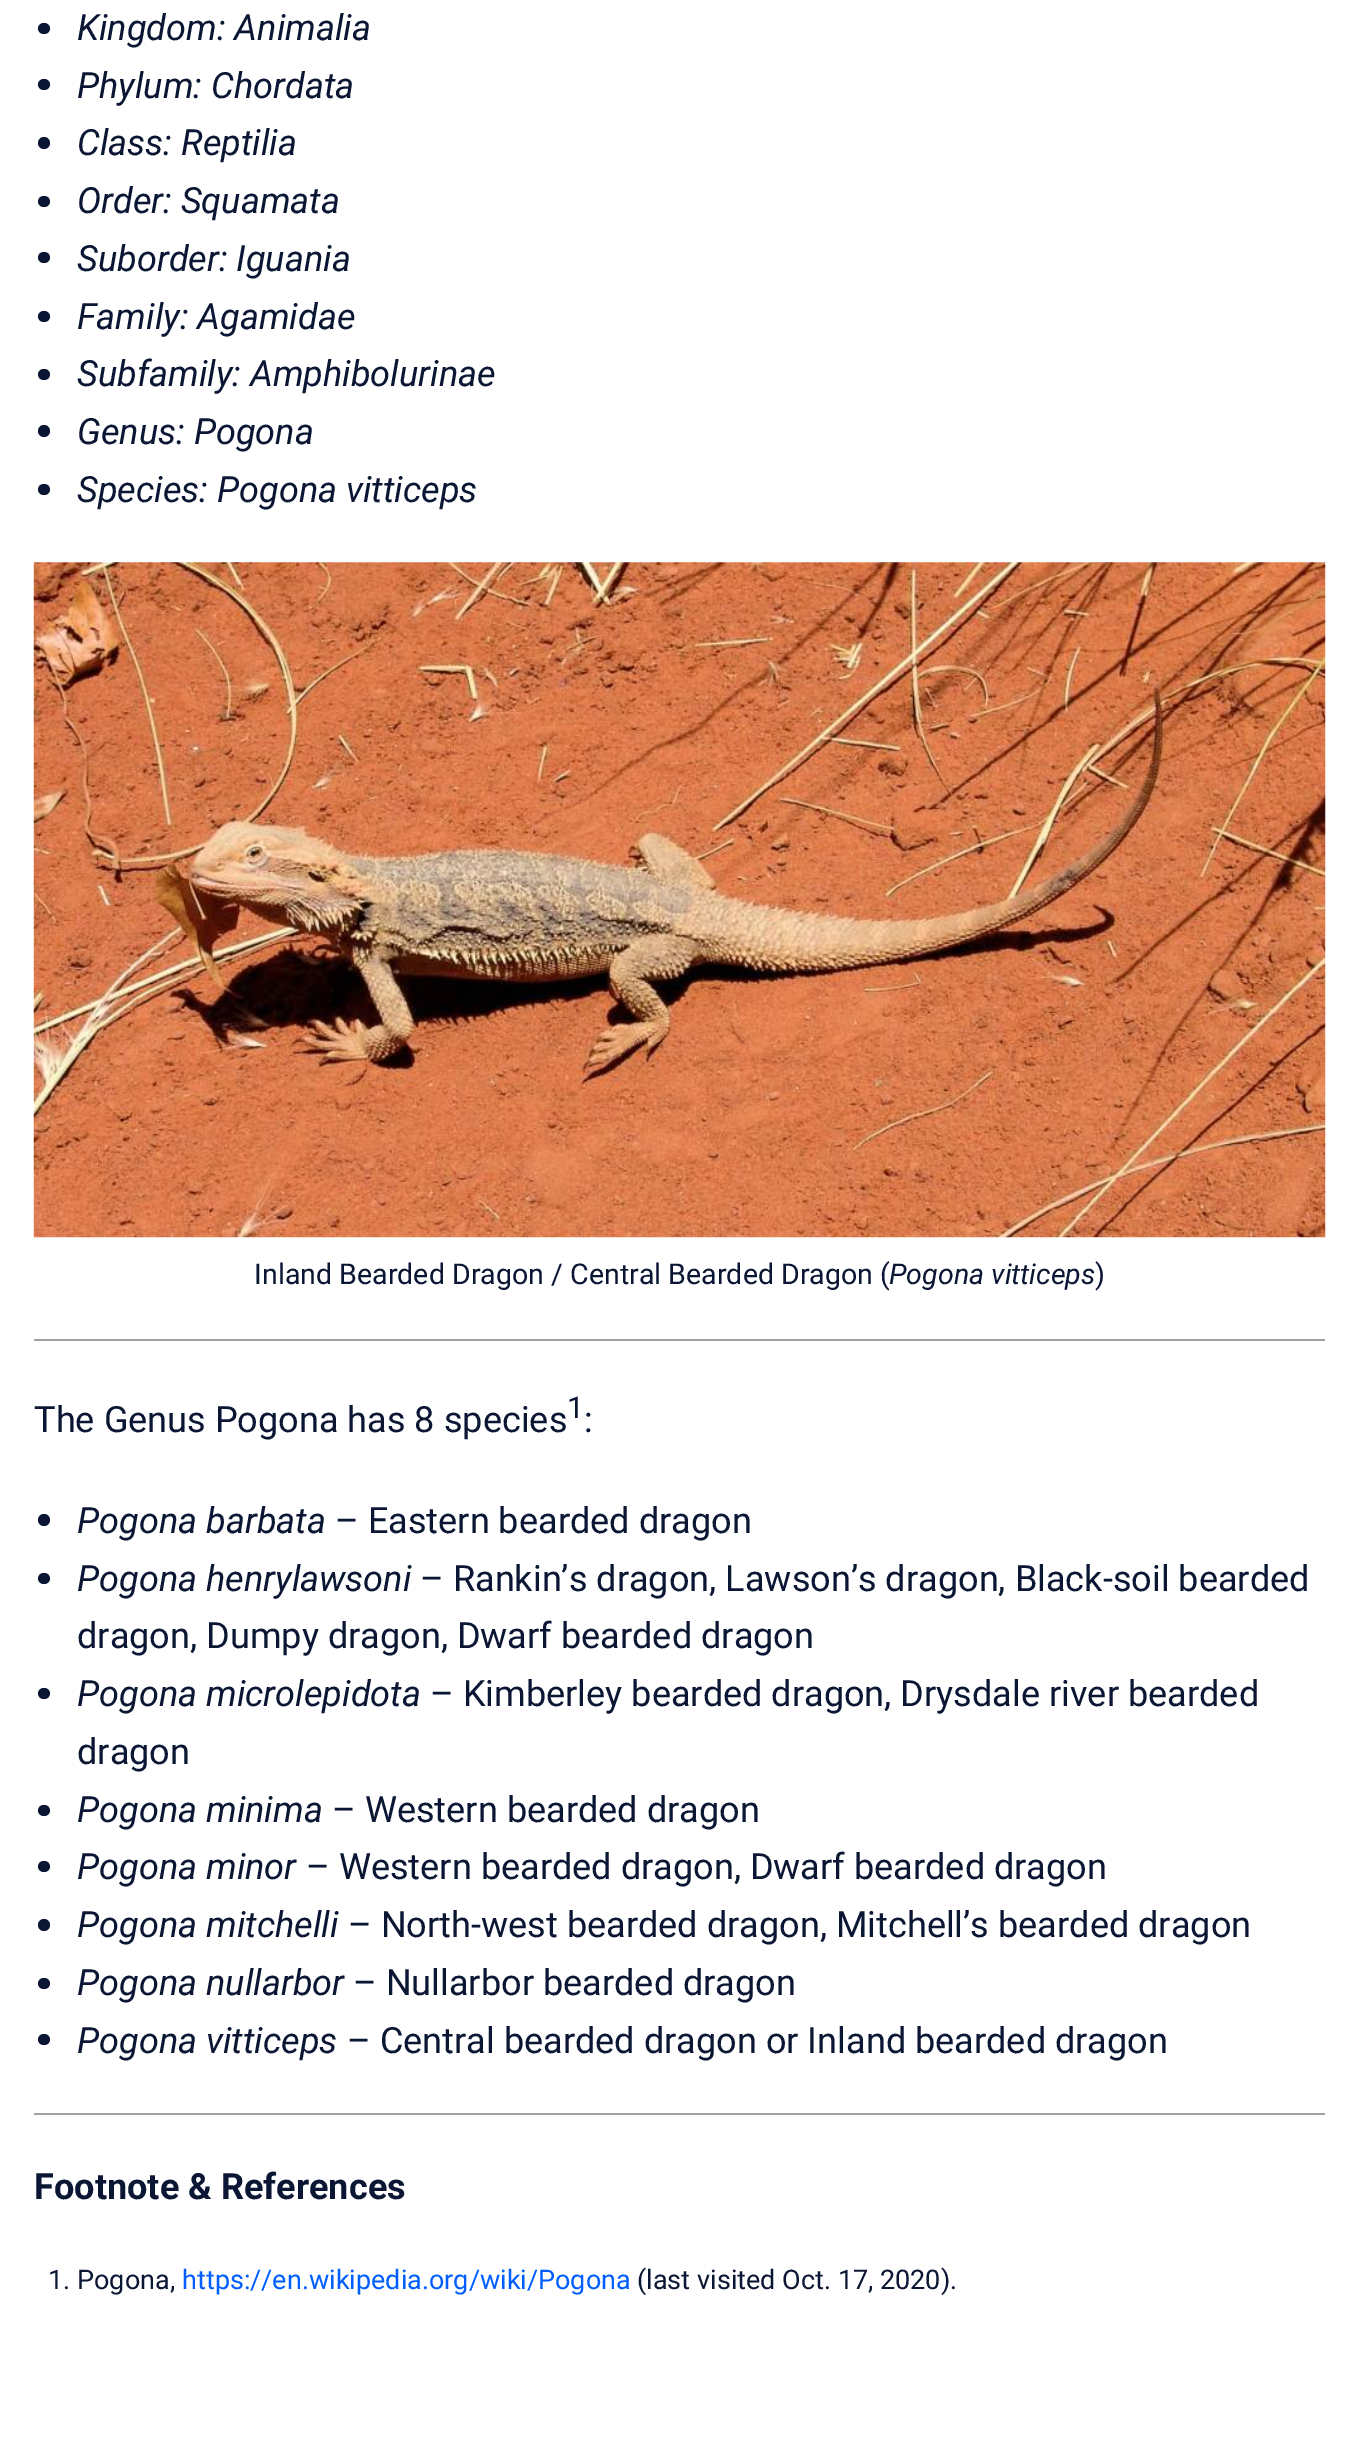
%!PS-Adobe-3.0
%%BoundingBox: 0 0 1358 2439
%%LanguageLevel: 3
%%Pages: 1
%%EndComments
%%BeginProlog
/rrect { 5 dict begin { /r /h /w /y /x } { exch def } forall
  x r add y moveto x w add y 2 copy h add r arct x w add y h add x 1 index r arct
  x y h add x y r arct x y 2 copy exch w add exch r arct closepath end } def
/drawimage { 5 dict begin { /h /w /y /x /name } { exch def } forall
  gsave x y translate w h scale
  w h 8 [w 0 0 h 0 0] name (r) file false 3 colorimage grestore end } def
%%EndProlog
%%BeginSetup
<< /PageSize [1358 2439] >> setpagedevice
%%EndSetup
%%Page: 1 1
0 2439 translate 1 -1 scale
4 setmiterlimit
1 setgray
0 0 1358 2439 rectfill
0.039 0.086 0.2 setrgbcolor
38 23 12 11 5.5 rrect fill
38 79 12 11 5.5 rrect fill
newpath 44 143 6 0 360 arc closepath fill
38 196 12 11 5.5 rrect fill
38 252 12 11 5.5 rrect fill
38 311 12 11 5.5 rrect fill
38 369 12 11 5.5 rrect fill
newpath 44 431 6 0 360 arc closepath fill
38 484 12 11 5.5 rrect fill
(images/1.raw) 33 562 1293 676 drawimage
0.631 setgray
34 1339 1291 2 rectfill
0.039 0.086 0.2 setrgbcolor
newpath 44 1520 6 0 360 arc closepath fill
38 1573 12 11 5.5 rrect fill
38 1688 12 11 5.5 rrect fill
38 1805 12 11 5.5 rrect fill
38 1861 12 11 5.5 rrect fill
newpath 44 1925 6 0 360 arc closepath fill
38 1978 12 11 5.5 rrect fill
38 2034 12 11 5.5 rrect fill
0.631 setgray
34 2113 1291 2 rectfill
/Roboto-Italic [36.1 0 0 -36.1 0 0] selectfont
0.039 0.086 0.2 setrgbcolor
77 40 moveto (Kingdom: Animalia) show
77 98 moveto (Phylum: Chordata) show
77 155 moveto (Class: Reptilia) show
77 213 moveto (Order: Squamata) show
77 271 moveto (Suborder: Iguania) show
77 329 moveto (Family: Agamidae) show
77 386 moveto (Subfamily: Amphibolurinae) show
77 444 moveto (Genus: Pogona) show
77 502 moveto (Species: Pogona vitticeps) show
/Roboto-Regular [28.6 0 0 -28.6 0 0] selectfont
254 1284 moveto (Inland Bearded Dragon / Central Bearded Dragon \() show
/Roboto-Italic [28.6 0 0 -28.6 0 0] selectfont
889 1284 moveto (Pogona vitticeps) show
/Roboto-Regular [28.6 0 0 -28.6 0 0] selectfont
1095 1284 moveto (\)) show
/Roboto-Regular [36.1 0 0 -36.1 0 0] selectfont
34 1432 moveto (The Genus Pogona has 8 species) show
/Roboto-Regular [30 0 0 -30 0 0] selectfont
567 1418 moveto (1) show
/Roboto-Regular [36.1 0 0 -36.1 0 0] selectfont
584 1432 moveto (:) show
/Roboto-Italic [36.1 0 0 -36.1 0 0] selectfont
77 1533 moveto (Pogona barbata) show
/Roboto-Regular [36.1 0 0 -36.1 0 0] selectfont
335 1533 moveto (– Eastern bearded dragon) show
/Roboto-Italic [36.1 0 0 -36.1 0 0] selectfont
77 1591 moveto (Pogona henrylawsoni) show
/Roboto-Regular [36.1 0 0 -36.1 0 0] selectfont
420 1591 moveto (– Rankin’s dragon, Lawson’s dragon, Black-soil bearded) show
77 1648 moveto (dragon, Dumpy dragon, Dwarf bearded dragon) show
/Roboto-Italic [36.1 0 0 -36.1 0 0] selectfont
77 1706 moveto (Pogona microlepidota) show
/Roboto-Regular [36.1 0 0 -36.1 0 0] selectfont
430 1706 moveto (– Kimberley bearded dragon, Drysdale river bearded) show
77 1764 moveto (dragon) show
/Roboto-Italic [36.1 0 0 -36.1 0 0] selectfont
77 1822 moveto (Pogona minima) show
/Roboto-Regular [36.1 0 0 -36.1 0 0] selectfont
332 1822 moveto (– Western bearded dragon) show
/Roboto-Italic [36.1 0 0 -36.1 0 0] selectfont
77 1879 moveto (Pogona minor) show
/Roboto-Regular [36.1 0 0 -36.1 0 0] selectfont
306 1879 moveto (– Western bearded dragon, Dwarf bearded dragon) show
/Roboto-Italic [36.1 0 0 -36.1 0 0] selectfont
77 1937 moveto (Pogona mitchelli) show
/Roboto-Regular [36.1 0 0 -36.1 0 0] selectfont
348 1937 moveto (– North-west bearded dragon, Mitchell’s bearded dragon) show
/Roboto-Italic [36.1 0 0 -36.1 0 0] selectfont
77 1995 moveto (Pogona nullarbor) show
/Roboto-Regular [36.1 0 0 -36.1 0 0] selectfont
353 1995 moveto (– Nullarbor bearded dragon) show
/Roboto-Italic [36.1 0 0 -36.1 0 0] selectfont
77 2053 moveto (Pogona vitticeps) show
/Roboto-Regular [36.1 0 0 -36.1 0 0] selectfont
347 2053 moveto (– Central bearded dragon or Inland bearded dragon) show
/Roboto-Bold [36.1 0 0 -36.1 0 0] selectfont
34 2199 moveto (Footnote & References) show
/Roboto-Regular [27 0 0 -27 0 0] selectfont
48 2289 moveto (1. Pogona,) show
0 0.369 1 setrgbcolor
182 2289 moveto (https://en.wikipedia.org/wiki/Pogona) show
0.039 0.086 0.2 setrgbcolor
637 2289 moveto (\(last visited Oct. 17, 2020\).) show
showpage
%%EOF
